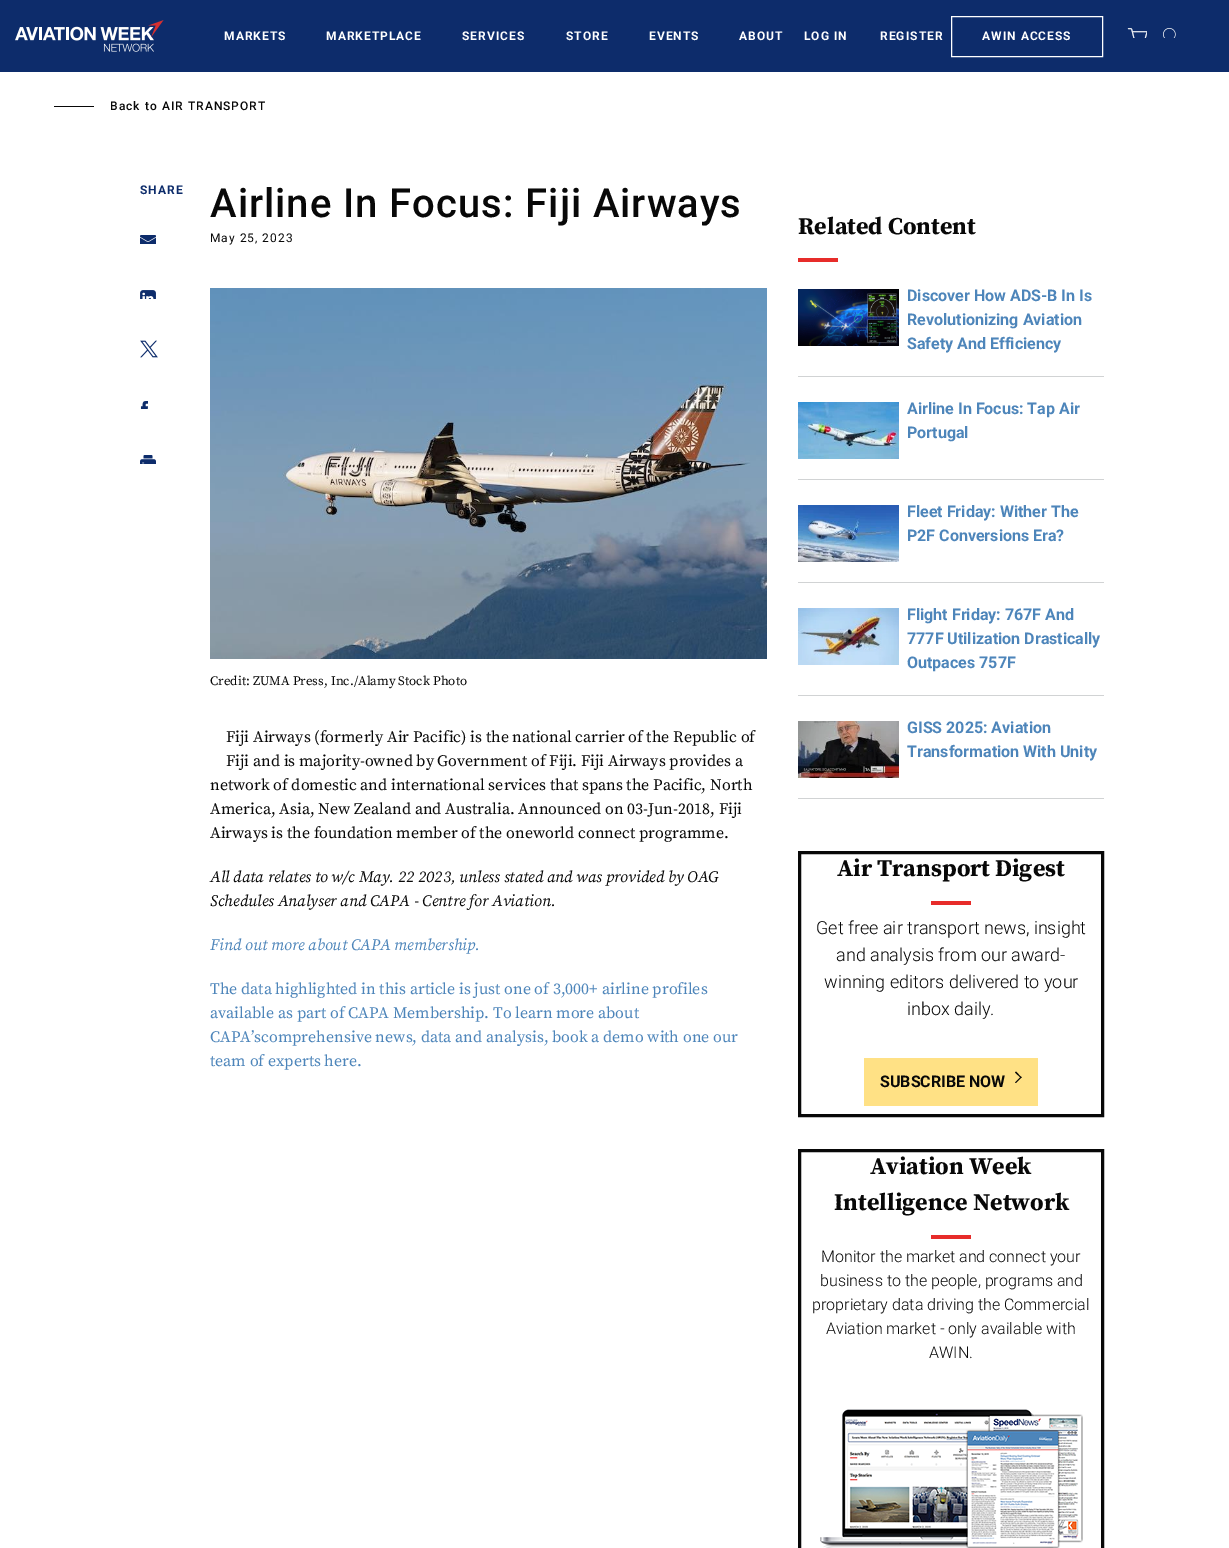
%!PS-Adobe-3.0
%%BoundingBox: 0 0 1229 1548
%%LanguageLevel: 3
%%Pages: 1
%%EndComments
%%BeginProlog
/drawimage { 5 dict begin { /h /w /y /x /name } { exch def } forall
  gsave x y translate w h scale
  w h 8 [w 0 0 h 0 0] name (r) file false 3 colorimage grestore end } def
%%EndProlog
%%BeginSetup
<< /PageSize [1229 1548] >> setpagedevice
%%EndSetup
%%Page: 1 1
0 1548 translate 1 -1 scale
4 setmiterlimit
1 setgray
0 0 1229 1548 rectfill
0.051 0.173 0.42 setrgbcolor
0 0 1229 72 rectfill
(images/1.raw) 15 20 149 32 drawimage
1 setgray
951.5 16.5 151 40 rectstroke
(images/2.raw) 1127 28 20 10 drawimage
(images/3.raw) 1163 28 13 10 drawimage
0.031 setgray
54 106 40 1 rectfill
(images/4.raw) 140 235 16 9 drawimage
(images/5.raw) 140 290 16 9 drawimage
(images/6.raw) 140 340 18 18 drawimage
(images/7.raw) 140 401 8 8 drawimage
(images/8.raw) 140 455 16 9 drawimage
(images/9.raw) 210 288 557 371 drawimage
0.906 0.173 0.165 setrgbcolor
798 258 40 4 rectfill
0.82 0.827 0.831 setrgbcolor
798 376 306 1 rectfill
(images/10.raw) 798 289 101 57 drawimage
798 479 306 1 rectfill
(images/11.raw) 798 402 101 57 drawimage
798 582 306 1 rectfill
(images/12.raw) 798 505 101 57 drawimage
798 695 306 1 rectfill
(images/13.raw) 798 608 101 57 drawimage
798 798 306 1 rectfill
(images/14.raw) 798 721 101 57 drawimage
0.031 setgray
3 setlinewidth
799.5 852.5 303 263 rectstroke
0.906 0.173 0.165 setrgbcolor
931 901 40 4 rectfill
1 0.882 0.522 setrgbcolor
864 1058 174 48 rectfill
0.031 setgray
newpath 1016 1071.5 moveto 1021.5 1077.5 lineto 1021 1078 lineto 1015 1072.5 lineto closepath fill
newpath 1021 1076.5 moveto 1021.5 1077.5 lineto 1016 1083 lineto 1015 1082.5 lineto closepath fill
799.5 1150.5 303 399 rectstroke
0.906 0.173 0.165 setrgbcolor
931 1235 40 4 rectfill
(images/15.raw) 820 1409 263 139 drawimage
/Roboto-Bold [12 0 0 -12 0 0] selectfont
1 setgray
224 40 moveto 1 0 (MARKETS) ashow
326 40 moveto 1 0 (MARKETPLACE) ashow
462 40 moveto 1 0 (SERVICES) ashow
566 40 moveto 1 0 (STORE) ashow
649 40 moveto 1 0 (EVENTS) ashow
739 40 moveto 1 0 (ABOUT) ashow
804 40 moveto 1 0 (LOG IN) ashow
880 40 moveto 1 0 (REGISTER) ashow
982 40 moveto 1 0 (AWIN ACCESS) ashow
/Roboto-Medium [12 0 0 -12 0 0] selectfont
0.031 setgray
110 110 moveto 1 0 (Back to) ashow
162 110 moveto 1 0 (AIR TRANSPORT) ashow
/Roboto-Bold [12 0 0 -12 0 0] selectfont
0.051 0.173 0.42 setrgbcolor
140 194 moveto 1 0 (SHARE) ashow
/Roboto-Medium [40 0 0 -40 0 0] selectfont
0.031 setgray
210 217 moveto 1 0 (Airline In Focus: Fiji Airways) ashow
/Roboto-Regular [12 0 0 -12 0 0] selectfont
210 242 moveto 1 0 (May 25, 2023) ashow
/SourceSerifPro-Regular [13 0 0 -13 0 0] selectfont
210 685 moveto (Credit: ZUMA Press, Inc./Alamy Stock Photo) show
/SourceSerifPro-Regular [16 0 0 -16 0 0] selectfont
226 742 moveto (Fiji Airways \(formerly Air Pacific\) is the national carrier of the Republic of) show
226 766 moveto (Fiji and is majority-owned by Government of Fiji. Fiji Airways provides a) show
210 790 moveto (network of domestic and international services that spans the Pacific, North) show
210 814 moveto (America, Asia, New Zealand and Australia. Announced on 03-Jun-2018, Fiji) show
210 838 moveto (Airways is the foundation member of the oneworld connect programme.) show
/SourceSerifPro-Italic [16 0 0 -16 0 0] selectfont
210 882 moveto (All data relates to w/c May. 22 2023, unless stated and was provided by OAG) show
210 906 moveto (Schedules Analyser and CAPA - Centre for Aviation.) show
0.302 0.522 0.729 setrgbcolor
210 950 moveto (Find out more about CAPA membership.) show
/SourceSerifPro-Regular [16 0 0 -16 0 0] selectfont
210 994 moveto (The data highlighted in this article is just one of 3,000+ airline profiles) show
210 1018 moveto (available as part of CAPA Membership. To learn more about) show
210 1042 moveto (CAPA’scomprehensive news, data and analysis, book a demo with one our) show
210 1066 moveto (team of experts here.) show
/SourceSerifPro-Bold [24 0 0 -24 0 0] selectfont
0.031 setgray
798 234 moveto (Related Content) show
/Roboto-Bold [16 0 0 -16 0 0] selectfont
0.302 0.522 0.729 setrgbcolor
907 301 moveto (Discover How ADS-B In Is) show
907 325 moveto (Revolutionizing Aviation) show
907 349 moveto (Safety And Efficiency) show
907 414 moveto (Airline In Focus: Tap Air) show
907 438 moveto (Portugal) show
907 517 moveto (Fleet Friday: Wither The) show
907 541 moveto (P2F Conversions Era?) show
907 620 moveto (Flight Friday: 767F And) show
907 644 moveto (777F Utilization Drastically) show
907 668 moveto (Outpaces 757F) show
907 733 moveto (GISS 2025: Aviation) show
907 757 moveto (Transformation With Unity) show
/SourceSerifPro-Bold [24 0 0 -24 0 0] selectfont
0.031 setgray
837 876 moveto (Air Transport Digest) show
/Roboto-Light [18 0 0 -18 0 0] selectfont
816 934 moveto (Get free air transport news, insight) show
836 961 moveto (and analysis from our award-) show
824 988 moveto (winning editors delivered to your) show
907 1015 moveto (inbox daily.) show
/Roboto-Bold [16 0 0 -16 0 0] selectfont
880 1087 moveto (SUBSCRIBE NOW) show
/SourceSerifPro-Bold [24 0 0 -24 0 0] selectfont
870 1174 moveto (Aviation Week) show
834 1210 moveto (Intelligence Network) show
/Roboto-Light [16 0 0 -16 0 0] selectfont
821 1262 moveto (Monitor the market and connect your) show
820 1286 moveto (business to the people, programs and) show
812 1310 moveto (proprietary data driving the Commercial) show
826 1334 moveto (Aviation market - only available with) show
929 1358 moveto (AWIN.) show
showpage
%%EOF
